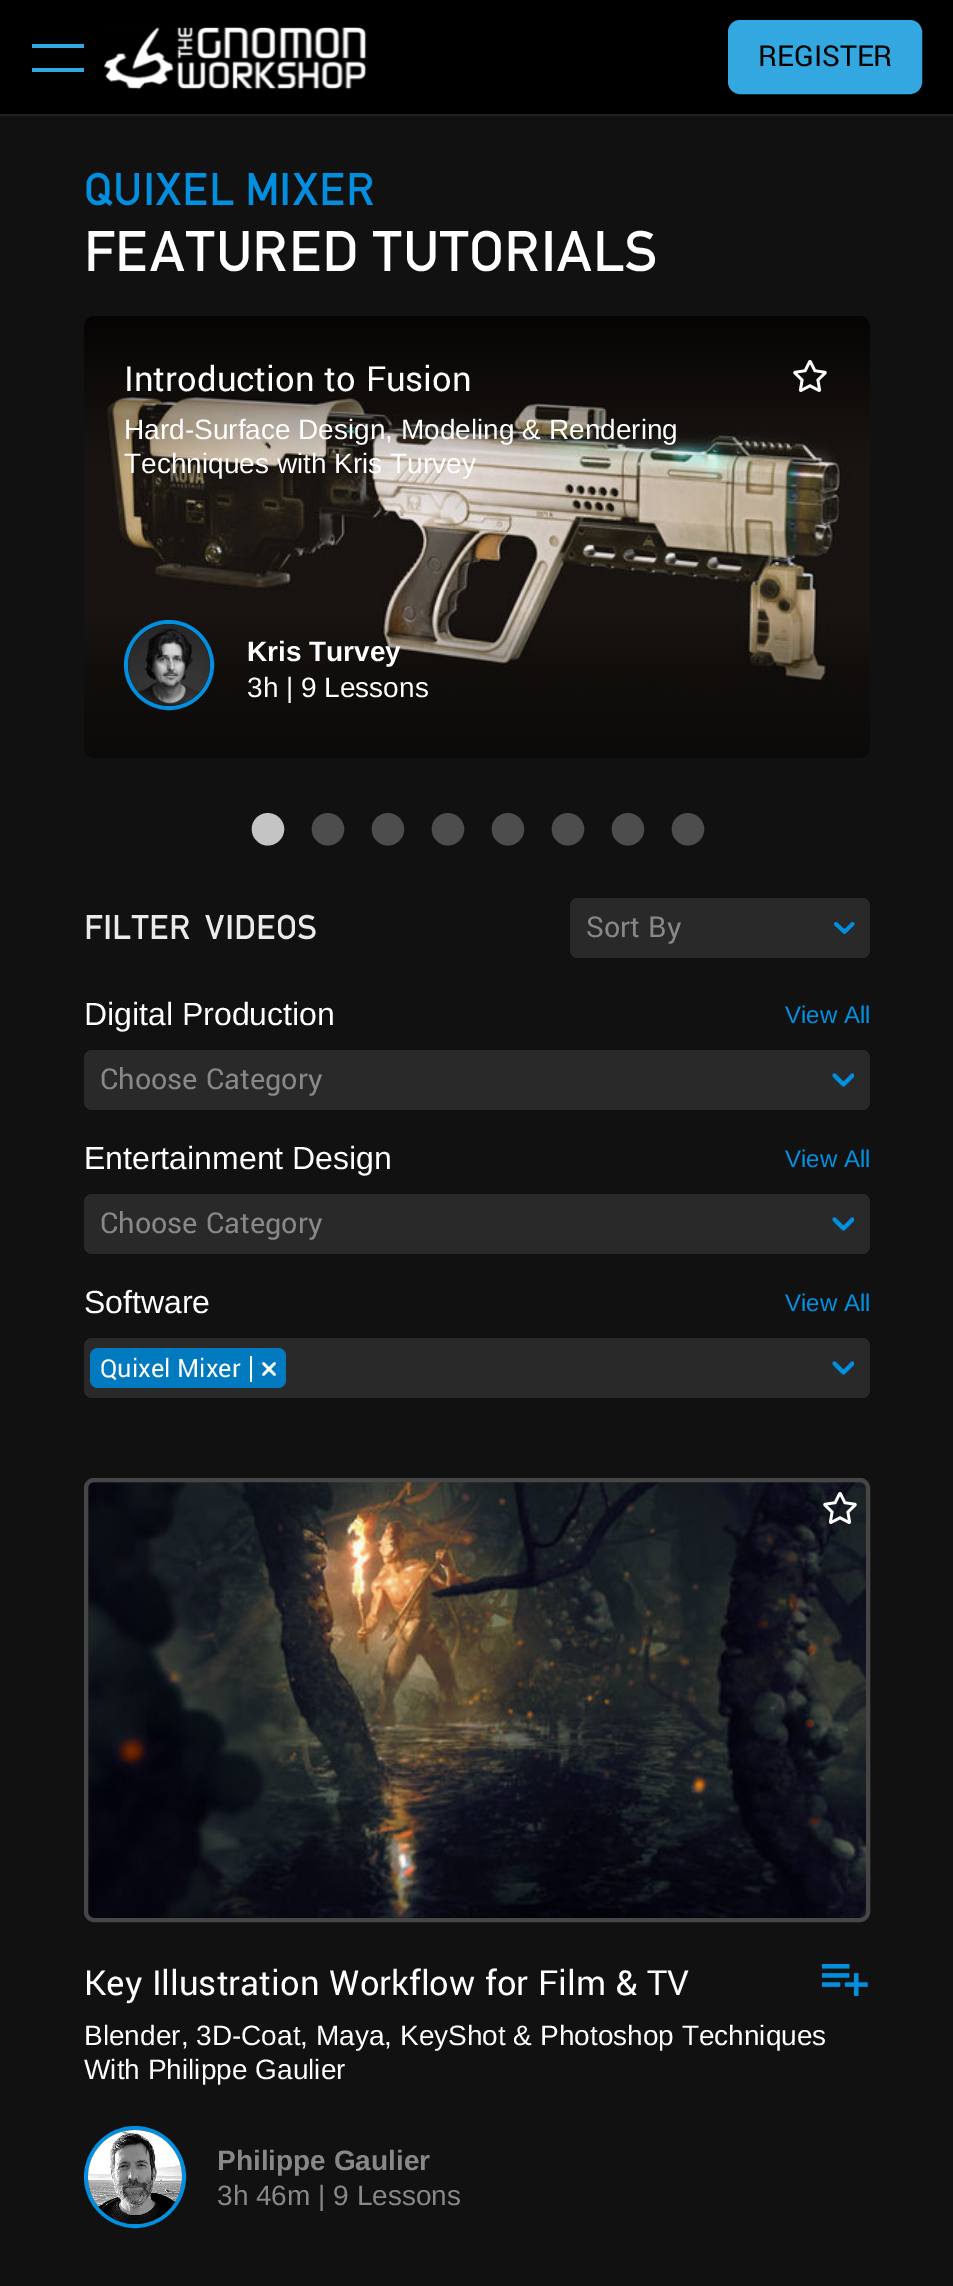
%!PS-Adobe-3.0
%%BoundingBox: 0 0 953 2286
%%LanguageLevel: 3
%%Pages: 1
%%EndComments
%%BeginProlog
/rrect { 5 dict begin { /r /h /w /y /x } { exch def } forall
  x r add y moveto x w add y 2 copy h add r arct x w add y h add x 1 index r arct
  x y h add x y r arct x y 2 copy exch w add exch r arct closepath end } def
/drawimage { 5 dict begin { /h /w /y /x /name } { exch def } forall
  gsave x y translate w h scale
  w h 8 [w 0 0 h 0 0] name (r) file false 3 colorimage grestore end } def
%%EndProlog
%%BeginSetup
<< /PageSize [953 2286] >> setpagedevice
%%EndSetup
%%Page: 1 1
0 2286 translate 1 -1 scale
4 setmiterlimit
0 setgray
0 0 953 2286 rectfill
0.2 0.659 0.878 setrgbcolor
32 44 52 4 rectfill
32 68 52 4 rectfill
(images/1.raw) 104 27 263 63 drawimage
729 21 192 72 11 rrect gsave fill grestore
2 setlinewidth
stroke
0.067 setgray
0 116 953 2170 rectfill
0.129 setgray
0 114 953 2 rectfill
(images/2.raw) 84 316 786 442 drawimage
(images/3.raw) 793 360 34 32 drawimage
0.008 0.561 0.875 setrgbcolor
4 setlinewidth
newpath 169 665 43 0 360 arc closepath stroke
(images/4.raw) 128 624 82 82 drawimage
0.161 setgray
570 898 300 60 8 rrect fill
0.008 0.561 0.875 setrgbcolor
3.7 setlinewidth
1 setlinecap
1 setlinejoin
newpath 836 924 moveto 844.5 932 lineto 852.5 924 lineto stroke
0.161 setgray
84 1050 786 60 8 rrect fill
gsave
832 1068 22 24 rectclip
0.008 0.561 0.875 setrgbcolor
4.1 setlinewidth
newpath 834.5 1075.5 moveto 843.5 1084.5 lineto 852.5 1075.5 lineto stroke
grestore
84 1194 786 60 8 rrect fill
gsave
832 1212 22 24 rectclip
0.008 0.561 0.875 setrgbcolor
4.1 setlinewidth
newpath 834.5 1219.5 moveto 843.5 1228.5 lineto 852.5 1219.5 lineto stroke
grestore
84 1338 786 60 8 rrect fill
0.008 0.478 0.753 setrgbcolor
90 1348 196 40 8 rrect fill
1 setgray
250 1356 2 26 rectfill
2.5 setlinewidth
newpath 263.5 1363.5 moveto 274.5 1374.5 lineto 263.5 1374.5 moveto 274.5 1363.5 lineto stroke
gsave
832 1356 22 24 rectclip
0.008 0.561 0.875 setrgbcolor
4.1 setlinewidth
newpath 834.5 1363.5 moveto 843.5 1372.5 lineto 852.5 1363.5 lineto stroke
grestore
(images/5.raw) 84 1478 786 444 drawimage
0.275 setgray
4 setlinewidth
0 setlinecap
0 setlinejoin
86 1480 782 440 8 rrect stroke
(images/6.raw) 823 1492 34 32 drawimage
(images/7.raw) 822 1964 46 32 drawimage
0.008 0.561 0.875 setrgbcolor
newpath 135 2177 49 0 360 arc closepath stroke
(images/8.raw) 88 2130 94 94 drawimage
/Yantramanav-Regular [32 0 0 -32 0 0] selectfont
0 setgray
758 66 moveto (REGISTER) show
/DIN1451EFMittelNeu-Regular [48 0 0 -48 0 0] selectfont
0.008 0.561 0.875 setrgbcolor
84 205 moveto -12 0 32 (QUIXEL MIXER) widthshow
/DIN1451EFMittelNeu-Regular [60 0 0 -60 0 0] selectfont
1 setgray
84 271 moveto -15 0 32 (FEATURED TUTORIALS) widthshow
/Yantramanav-Regular [38.4 0 0 -38.4 0 0] selectfont
124 391 moveto (Introduction to Fusion) show
/LiberationSans-Regular [28 0 0 -28 0 0] selectfont
124 439 moveto (Hard-Surface Design, Modeling & Rendering) show
124 473 moveto (Techniques with Kris Turvey) show
/LiberationSans-Bold [28 0 0 -28 0 0] selectfont
247 661 moveto (Kris Turvey) show
/LiberationSans-Regular [28 0 0 -28 0 0] selectfont
247 697 moveto (3h | 9 Lessons) show
/LiberationSans-Regular [120 0 0 -120 0 0] selectfont
0.769 setgray
247 869 moveto (•) show
0.302 setgray
307 869 moveto (•) show
367 869 moveto (•) show
427 869 moveto (•) show
487 869 moveto (•) show
547 869 moveto (•) show
607 869 moveto (•) show
667 869 moveto (•) show
/DIN1451EFMittelNeu-Regular [36 0 0 -36 0 0] selectfont
0.918 setgray
84 939 moveto -3 0 32 (FILTER VIDEOS) widthshow
/Yantramanav-Regular [32 0 0 -32 0 0] selectfont
0.533 setgray
586 937 moveto (Sort By) show
/LiberationSans-Regular [32 0 0 -32 0 0] selectfont
1 setgray
84 1025 moveto (Digital Production) show
/LiberationSans-Regular [24 0 0 -24 0 0] selectfont
0.008 0.561 0.875 setrgbcolor
785 1023 moveto (View All) show
/Yantramanav-Regular [32 0 0 -32 0 0] selectfont
0.533 setgray
100 1089 moveto (Choose Category) show
/LiberationSans-Regular [32 0 0 -32 0 0] selectfont
1 setgray
84 1169 moveto (Entertainment Design) show
/LiberationSans-Regular [24 0 0 -24 0 0] selectfont
0.008 0.561 0.875 setrgbcolor
785 1167 moveto (View All) show
/Yantramanav-Regular [32 0 0 -32 0 0] selectfont
0.533 setgray
100 1233 moveto (Choose Category) show
/LiberationSans-Regular [32 0 0 -32 0 0] selectfont
1 setgray
84 1313 moveto (Software) show
/LiberationSans-Regular [24 0 0 -24 0 0] selectfont
0.008 0.561 0.875 setrgbcolor
785 1311 moveto (View All) show
/Yantramanav-Regular [28 0 0 -28 0 0] selectfont
1 setgray
100 1377 moveto (Quixel Mixer) show
/Yantramanav-Regular [38.4 0 0 -38.4 0 0] selectfont
84 1995 moveto (Key Illustration Workflow for Film & TV) show
/LiberationSans-Regular [28 0 0 -28 0 0] selectfont
84 2045 moveto (Blender, 3D-Coat, Maya, KeyShot & Photoshop Techniques) show
84 2079 moveto (With Philippe Gaulier) show
/LiberationSans-Bold [28 0 0 -28 0 0] selectfont
0.533 setgray
217 2170 moveto (Philippe Gaulier) show
/LiberationSans-Regular [28 0 0 -28 0 0] selectfont
217 2205 moveto (3h 46m | 9 Lessons) show
showpage
%%EOF
